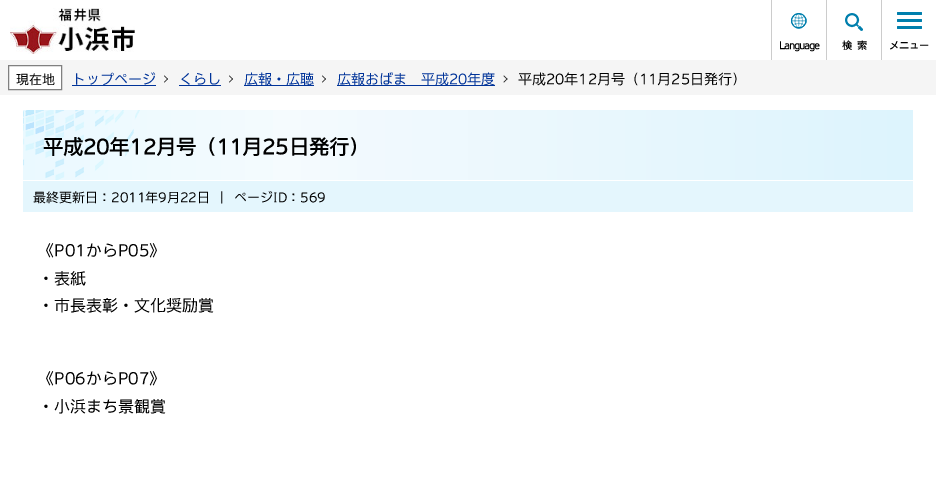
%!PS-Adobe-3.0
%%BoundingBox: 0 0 936 479
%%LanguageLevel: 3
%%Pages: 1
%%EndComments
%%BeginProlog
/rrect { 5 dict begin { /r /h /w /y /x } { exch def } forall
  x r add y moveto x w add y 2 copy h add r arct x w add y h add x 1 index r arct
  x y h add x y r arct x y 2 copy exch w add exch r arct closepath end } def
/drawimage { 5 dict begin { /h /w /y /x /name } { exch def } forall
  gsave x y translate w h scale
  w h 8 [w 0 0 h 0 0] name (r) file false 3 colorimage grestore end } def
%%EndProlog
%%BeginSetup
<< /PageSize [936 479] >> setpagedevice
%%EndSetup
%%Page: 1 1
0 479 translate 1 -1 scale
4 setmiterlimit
1 setgray
0 0 936 479 rectfill
(images/1.raw) 10 8 125 46 drawimage
0.8 setgray
771 0 1 60 rectfill
(images/2.raw) 791 13 16 16 drawimage
826 0 1 60 rectfill
(images/3.raw) 845 13 18 18 drawimage
881 0 1 60 rectfill
0 0.498 0.678 setrgbcolor
897 12 25 3 1 rrect fill
897 19 25 3 1 rrect fill
897 26 25 3 1 rrect fill
0.961 setgray
0 60 936 35 rectfill
1 setgray
newpath 8.5 65.5 moveto 61.5 65.5 lineto 61.5 89.5 lineto 8.5 89.5 lineto closepath gsave fill grestore
0.502 setgray
stroke
0 0.2 0.6 setrgbcolor
72 85 84 1 rectfill
0.149 setgray
newpath 164.5 75.5 moveto 168 79 lineto 167.5 79.5 lineto 164 76 lineto closepath fill
newpath 167.5 78.5 moveto 168 79 lineto 164.5 82.5 lineto 164 82 lineto closepath fill
0 0.2 0.6 setrgbcolor
179 85 42 1 rectfill
0.149 setgray
newpath 229.5 75.5 moveto 233 79 lineto 232.5 79.5 lineto 229 76 lineto closepath fill
newpath 232.5 78.5 moveto 233 79 lineto 229.5 82.5 lineto 229 82 lineto closepath fill
0 0.2 0.6 setrgbcolor
244 85 70 1 rectfill
0.149 setgray
newpath 322.5 75.5 moveto 326 79 lineto 325.5 79.5 lineto 322 76 lineto closepath fill
newpath 325.5 78.5 moveto 326 79 lineto 322.5 82.5 lineto 322 82 lineto closepath fill
0 0.2 0.6 setrgbcolor
337 85 158 1 rectfill
0.149 setgray
newpath 504 75.5 moveto 507.5 79 lineto 507 79.5 lineto 503.5 76 lineto closepath fill
newpath 507 78.5 moveto 507.5 79 lineto 504 82.5 lineto 503.5 82 lineto closepath fill
gsave newpath 23 110 moveto 913 110 lineto 913 180 lineto 23 180 lineto closepath clip newpath
<< /ShadingType 2 /ColorSpace /DeviceRGB /Coords [23 145 913 145] /Extend [true true] /Function << /FunctionType 3 /Domain [0 1] /Functions [<< /FunctionType 2 /Domain [0 1] /C0 [0.918 0.976 1] /C1 [0.961 0.984 0.996] /N 1 >> << /FunctionType 2 /Domain [0 1] /C0 [0.961 0.984 0.996] /C1 [0.867 0.957 0.992] /N 1 >>] /Bounds [0.3] /Encode [0 1 0 1] >> >> shfill grestore
(images/4.raw) 23 110 117 70 drawimage
0.894 0.965 0.992 setrgbcolor
23 181 890 31 rectfill
/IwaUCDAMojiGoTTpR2-Bold [10 0 0 -10 0 0] selectfont
0 setgray
779 49 moveto -1 0 (Language) ashow
842 49 moveto 5 0 (検索) ashow
889 49 moveto (メニュー) show
/IwaUCDAMojiGoTTpR2-Regular [13 0 0 -13 0 0] selectfont
16 84 moveto (現在地) show
/IwaUCDAMojiGoTTpR2-Regular [14 0 0 -14 0 0] selectfont
0 0.2 0.6 setrgbcolor
72 84 moveto (トップページ) show
179 84 moveto (くらし) show
244 84 moveto (広報・広聴) show
337 84 moveto (広報おばま　平成20年度) show
0 setgray
518 84 moveto (平成20年12月号（11月25日発行）) show
/IwaUCDAMojiGoTTpR2-Bold [20 0 0 -20 0 0] selectfont
43 154 moveto (平成20年12月号（11月25日発行）) show
/IwaUCDAMojiGoTTpR2-Regular [13 0 0 -13 0 0] selectfont
33 202 moveto (最終更新日：2011年9月22日) show
220 202 moveto (|) show
234 202 moveto (ページID：569) show
/IwaUCDAMojiGoTTpR2-Regular [16 0 0 -16 0 0] selectfont
38 256 moveto (《P01からP05》) show
38 284 moveto (・表紙) show
38 311 moveto (・市長表彰・文化奨励賞) show
38 384 moveto (《P06からP07》) show
38 412 moveto (・小浜まち景観賞) show
showpage
%%EOF
